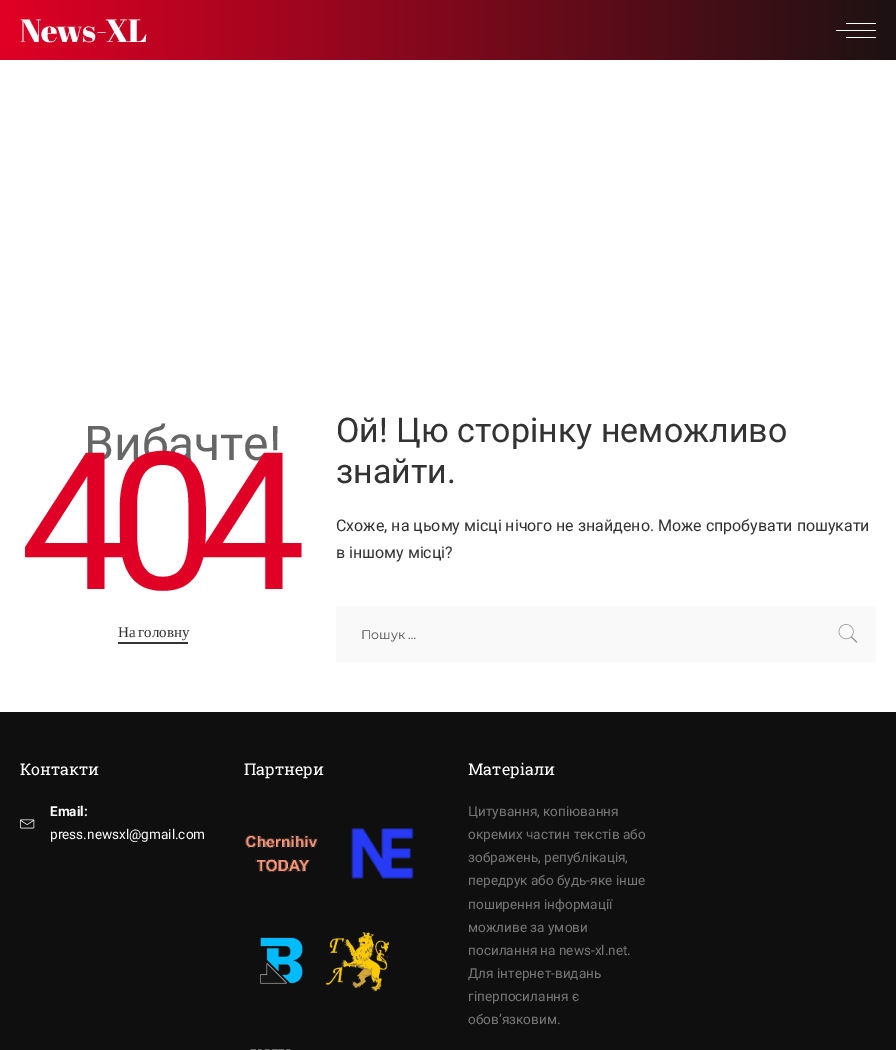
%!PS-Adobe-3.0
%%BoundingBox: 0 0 896 1050
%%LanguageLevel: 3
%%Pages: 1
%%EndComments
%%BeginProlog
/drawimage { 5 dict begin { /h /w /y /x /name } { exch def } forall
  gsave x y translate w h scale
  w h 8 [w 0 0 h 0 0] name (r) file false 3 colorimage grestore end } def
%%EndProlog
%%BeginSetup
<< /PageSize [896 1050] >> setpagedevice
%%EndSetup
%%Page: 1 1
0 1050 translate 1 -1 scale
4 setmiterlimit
1 setgray
0 0 896 1050 rectfill
gsave newpath 0 0 moveto 896 0 lineto 896 60 lineto 0 60 lineto closepath clip newpath
<< /ShadingType 2 /ColorSpace /DeviceRGB /Coords [0 30 896 30] /Extend [true true] /Function << /FunctionType 2 /Domain [0 1] /C0 [0.878 0 0.145] /C1 [0.11 0.071 0.075] /N 1 >> >> shfill grestore
836 30 40 1 rectfill
846 23 30 1 rectfill
846 37 30 1 rectfill
0.2 setgray
118 642 70 2 rectfill
0.976 setgray
336 606 540 56 rectfill
(images/1.raw) 838 624 20 19 drawimage
0.059 setgray
0 712 896 338 rectfill
(images/2.raw) 20 819 15 10 drawimage
(images/3.raw) 245 835 73 37 drawimage
(images/4.raw) 351 828 63 51 drawimage
(images/5.raw) 260 937 43 47 drawimage
(images/6.raw) 325 932 65 60 drawimage
(images/7.raw) 250 1049 41 1 drawimage
/AbrilFatface-Regular [32 0 0 -32 0 0] selectfont
1 setgray
20 42 moveto -0.75 0 (News-XL) ashow
/Roboto-Regular [48 0 0 -48 0 0] selectfont
0.4 setgray
84 460 moveto (Вибачте!) show
/Roboto-Regular [192 0 0 -192 0 0] selectfont
0.878 0 0.145 setrgbcolor
20 589 moveto -19 0 (404) ashow
/LiberationSerif-Regular [15 0 0 -15 0 0] selectfont
0.2 setgray
118 637 moveto -1 0 32 (На головну) widthshow
/Roboto-Regular [34 0 0 -34 0 0] selectfont
336 442 moveto (Ой! Цю сторінку неможливо) show
336 483 moveto (знайти.) show
/Roboto-Regular [16 0 0 -16 0 0] selectfont
336 531 moveto (Схоже, на цьому місці нічого не знайдено. Може спробувати пошукати) show
336 558 moveto (в іншому місці?) show
/Montserrat-Thin [12.5 0 0 -12.5 0 0] selectfont
0.294 setgray
361 639 moveto (Пошук …) show
/RobotoSlab-Regular [16 0 0 -16 0 0] selectfont
1 setgray
20 775 moveto (Контакти) show
/Roboto-Bold [13.6 0 0 -13.6 0 0] selectfont
50 816 moveto (Email:) show
gsave
20 757 184 89 rectclip
/Roboto-Regular [13.6 0 0 -13.6 0 0] selectfont
50 839 moveto (press.newsxl@gmail.com) show
grestore
/RobotoSlab-Regular [16 0 0 -16 0 0] selectfont
244 775 moveto (Партнери) show
468 775 moveto (Матеріали) show
/Roboto-Regular [13.6 0 0 -13.6 0 0] selectfont
0.467 setgray
468 816 moveto (Цитування, копіювання) show
468 839 moveto (окремих частин текстів або) show
468 862 moveto (зображень, републікація,) show
468 885 moveto (передрук або будь-яке інше) show
468 909 moveto (поширення інформації) show
468 932 moveto (можливе за умови) show
468 955 moveto (посилання на news-xl.net.) show
468 978 moveto (Для інтернет-видань) show
468 1001 moveto (гіперпосилання є) show
468 1024 moveto (обов’язковим.) show
showpage
%%EOF
